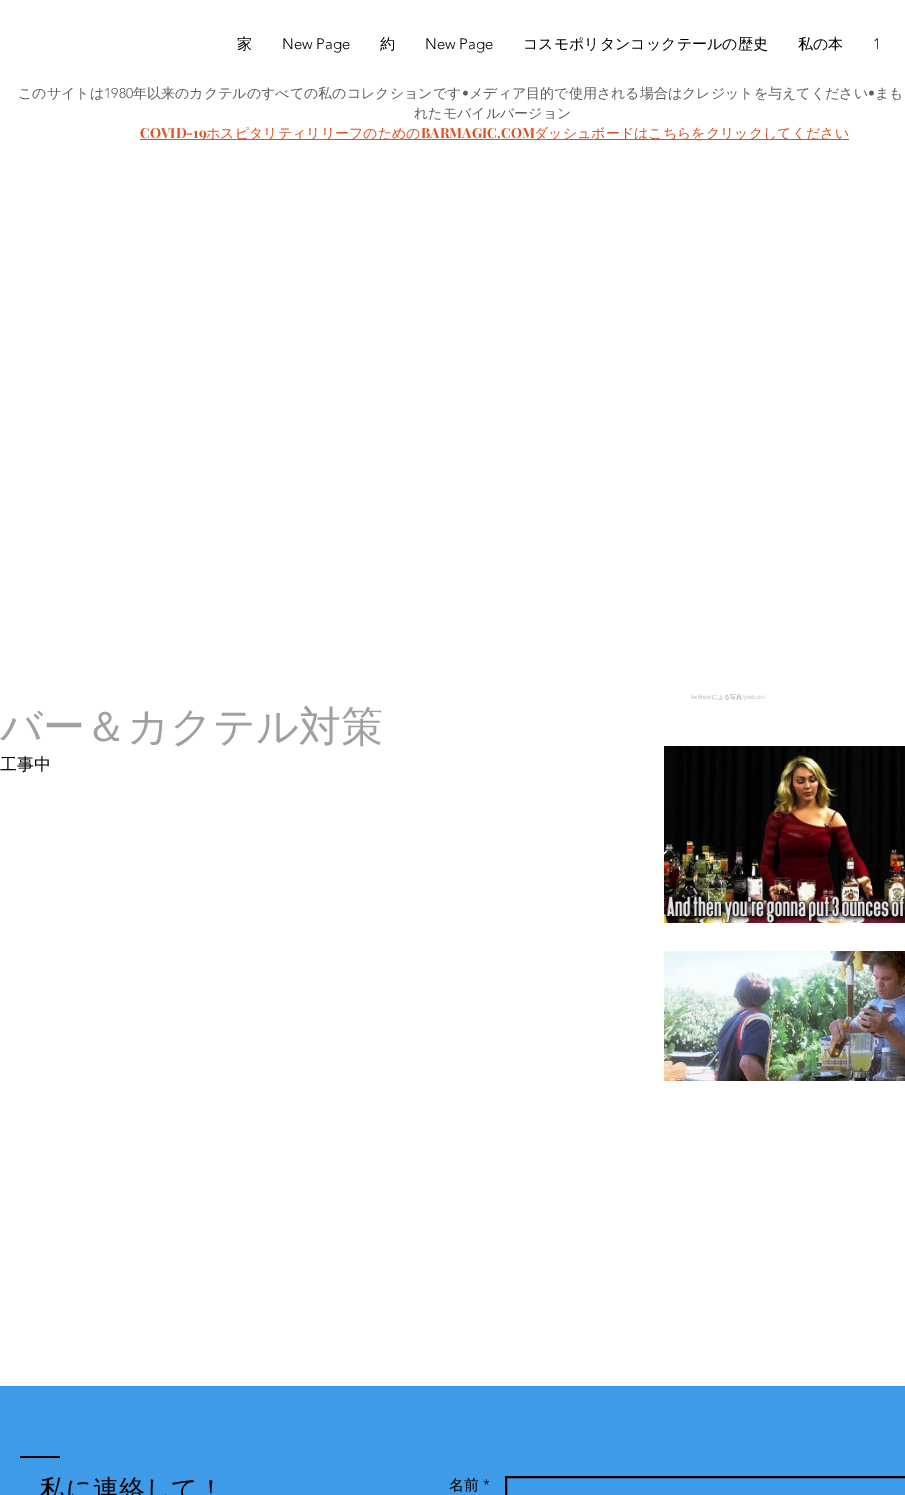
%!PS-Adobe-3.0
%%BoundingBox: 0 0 905 1495
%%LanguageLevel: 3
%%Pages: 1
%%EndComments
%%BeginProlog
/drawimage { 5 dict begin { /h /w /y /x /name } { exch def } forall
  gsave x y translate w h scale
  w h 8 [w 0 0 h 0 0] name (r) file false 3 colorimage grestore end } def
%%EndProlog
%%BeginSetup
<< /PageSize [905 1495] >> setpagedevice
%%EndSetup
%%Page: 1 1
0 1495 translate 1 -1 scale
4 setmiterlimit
1 setgray
0 0 905 1495 rectfill
0.871 0.314 0.129 setrgbcolor
140 139 709 1 rectfill
(images/1.raw) 664 746 241 177 drawimage
(images/2.raw) 664 951 241 130 drawimage
0.239 0.608 0.914 setrgbcolor
0 1386 905 109 rectfill
0 setgray
20 1456 40 2 rectfill
2 setlinewidth
506 1477 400 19 rectstroke
/WenQuanYiZenHei-Medium [15 0 0 -15 0 0] selectfont
237 49 moveto (家) show
/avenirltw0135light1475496-Light [15 0 0 -15 0 0] selectfont
282 49 moveto (New Page) show
/WenQuanYiZenHei-Medium [15 0 0 -15 0 0] selectfont
380 49 moveto (約) show
/avenirltw0135light1475496-Light [15 0 0 -15 0 0] selectfont
425 49 moveto (New Page) show
/WenQuanYiZenHei-Medium [15 0 0 -15 0 0] selectfont
523 49 moveto (コスモポリタンコックテールの歴史) show
798 49 moveto (私の本) show
/avenirltw0135light1475496-Light [15 0 0 -15 0 0] selectfont
873 49 moveto (1) show
/WenQuanYiZenHei-Medium [14 0 0 -14 0 0] selectfont
0.376 0.369 0.369 setrgbcolor
18 98 moveto (このサイトは) show
/avenirltw0135light1475496-Light [14 0 0 -14 0 0] selectfont
104 98 moveto (1980) show
/WenQuanYiZenHei-Medium [14 0 0 -14 0 0] selectfont
133 98 moveto (年以来のカクテルのすべての私のコレクションです) show
/avenirltw0135light1475496-Light [14 0 0 -14 0 0] selectfont
462 98 moveto (•) show
/WenQuanYiZenHei-Medium [14 0 0 -14 0 0] selectfont
469 98 moveto (メディア目的で使用される場合はクレジットを与えてください) show
/avenirltw0135light1475496-Light [14 0 0 -14 0 0] selectfont
868 98 moveto (•) show
/WenQuanYiZenHei-Medium [14 0 0 -14 0 0] selectfont
875 98 moveto (まも) show
414 118 moveto (れたモバイルバージョン) show
/PlayfairDisplay-Bold [14 0 0 -14 0 0] selectfont
0.871 0.314 0.129 setrgbcolor
140 138 moveto (COVID-19) show
/WenQuanYiZenHei-Medium [14 0 0 -14 0 0] selectfont
206 138 moveto (ホスピタリティリリーフのための) show
/PlayfairDisplay-Bold [14 0 0 -14 0 0] selectfont
421 138 moveto (BARMAGIC.COM) show
/WenQuanYiZenHei-Medium [14 0 0 -14 0 0] selectfont
534 138 moveto (ダッシュボードはこちらをクリックしてください) show
/OpenSansCondensed-Light [6 0 0 -6 0 0] selectfont
0.627 0.627 0.624 setrgbcolor
691 699 moveto (AxelBreuer) show
/WenQuanYiZenHei-Medium [6 0 0 -6 0 0] selectfont
712 699 moveto (による写真) show
/OpenSansCondensed-Light [6 0 0 -6 0 0] selectfont
742 699 moveto (/pixels.com) show
/WenQuanYiZenHei-Medium [42 0 0 -42 0 0] selectfont
0 741 moveto (バー＆カクテル対策) show
/WenQuanYiZenHei-Medium [17 0 0 -17 0 0] selectfont
0 setgray
0 770 moveto (工事中) show
/WenQuanYiZenHei-Medium [26 0 0 -26 0 0] selectfont
40 1498 moveto (私に連絡して！) show
/WenQuanYiZenHei-Medium [15 0 0 -15 0 0] selectfont
449 1490 moveto (名前) show
/avenirltw0135light1475496-Light [15 0 0 -15 0 0] selectfont
483 1490 moveto (*) show
showpage
%%EOF
